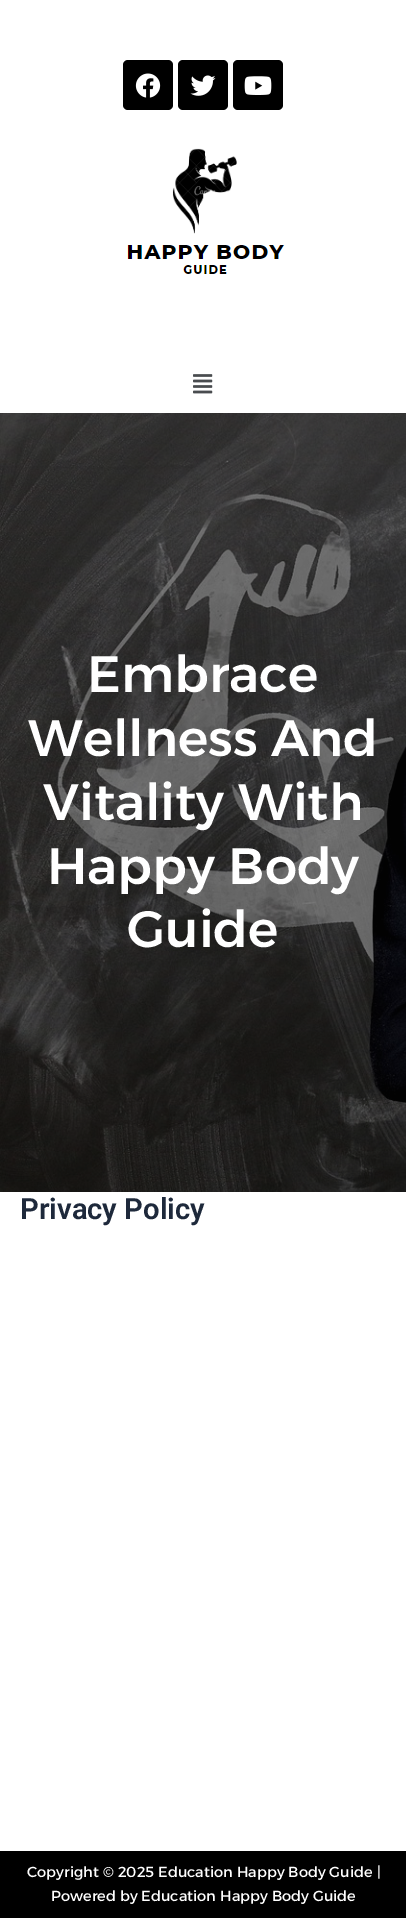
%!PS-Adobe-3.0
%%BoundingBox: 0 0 406 1918
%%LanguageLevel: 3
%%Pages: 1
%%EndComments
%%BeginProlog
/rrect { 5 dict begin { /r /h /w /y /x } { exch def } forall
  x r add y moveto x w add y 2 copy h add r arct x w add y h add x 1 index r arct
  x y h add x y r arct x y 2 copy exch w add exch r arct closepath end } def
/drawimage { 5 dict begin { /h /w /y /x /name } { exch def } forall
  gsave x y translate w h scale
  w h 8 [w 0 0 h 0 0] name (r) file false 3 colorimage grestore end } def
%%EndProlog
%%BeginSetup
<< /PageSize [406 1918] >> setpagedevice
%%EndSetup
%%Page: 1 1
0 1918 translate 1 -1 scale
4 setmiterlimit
1 setgray
0 0 406 1918 rectfill
0 setgray
123 60 50 50 5 rrect fill
(images/1.raw) 135 73 26 25 drawimage
178 60 50 50 5 rrect fill
(images/2.raw) 190 75 26 21 drawimage
233 60 50 50 5 rrect fill
(images/3.raw) 244 76 28 19 drawimage
(images/4.raw) 127 148 158 126 drawimage
(images/5.raw) 193 374 20 20 drawimage
(images/6.raw) 0 413 406 779 drawimage
0 1851 406 67 rectfill
/Alexandria-Medium [51 0 0 -51 0 0] selectfont
1 setgray
87 692 moveto (Embrace) show
28 756 moveto (Wellness And) show
43 820 moveto (Vitality With) show
47 884 moveto (Happy Body) show
127 947 moveto (Guide) show
/Roboto-SemiBold [29.25 0 0 -29.25 0 0] selectfont
0.118 0.161 0.231 setrgbcolor
20 1219 moveto (Privacy Policy) show
/Alexandria-Regular [14.6 0 0 -14.6 0 0] selectfont
1 setgray
27 1877 moveto (Copyright © 2025 Education Happy Body Guide |) show
51 1901 moveto (Powered by Education Happy Body Guide) show
showpage
%%EOF
